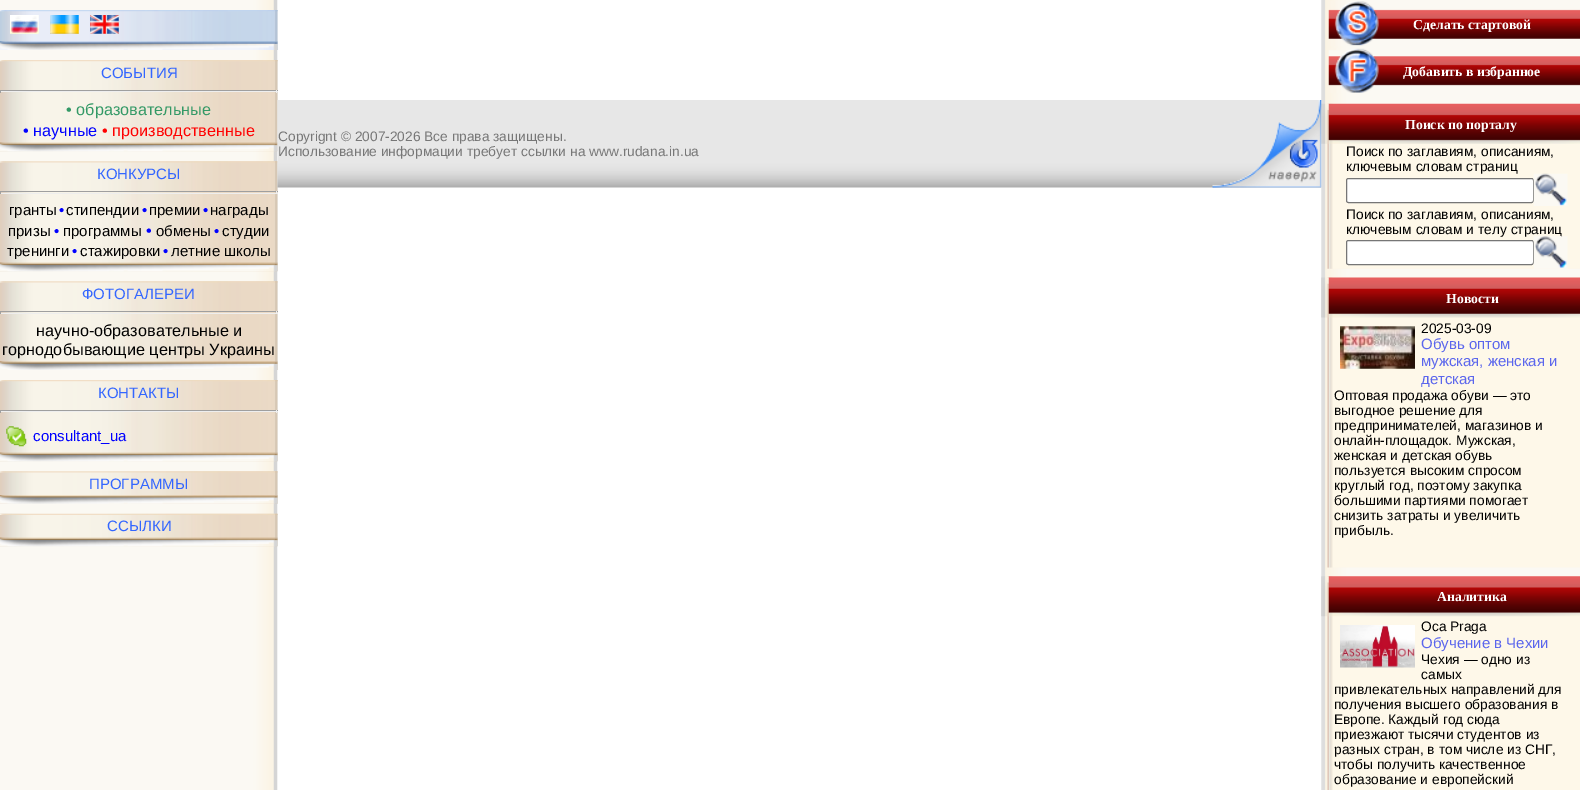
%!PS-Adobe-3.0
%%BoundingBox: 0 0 1580 790
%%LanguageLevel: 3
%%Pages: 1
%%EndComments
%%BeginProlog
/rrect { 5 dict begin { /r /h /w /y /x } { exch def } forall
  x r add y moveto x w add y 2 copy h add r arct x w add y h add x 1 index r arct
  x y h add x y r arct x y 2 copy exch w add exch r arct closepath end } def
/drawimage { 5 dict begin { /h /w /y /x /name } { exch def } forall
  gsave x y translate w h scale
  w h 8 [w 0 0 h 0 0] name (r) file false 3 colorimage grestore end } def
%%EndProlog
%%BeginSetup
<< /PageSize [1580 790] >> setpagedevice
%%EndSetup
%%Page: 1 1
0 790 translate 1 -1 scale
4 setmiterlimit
1 setgray
0 0 1580 790 rectfill
(images/1.raw) 0 0 278 790 drawimage
(images/2.raw) 0 10 278 40 drawimage
(images/3.raw) 0 10 278 2 drawimage
(images/4.raw) 10 15 29 19 drawimage
(images/5.raw) 50 15 29 19 drawimage
(images/6.raw) 90 15 29 19 drawimage
(images/7.raw) 0 41 278 9 drawimage
(images/8.raw) 0 60 278 92 drawimage
(images/9.raw) 0 60 278 2 drawimage
0.624 setgray
0 90 278 1 rectfill
0.933 setgray
276 90 1 3 rectfill
0 91 278 1 rectfill
0.624 setgray
0 90 1 3 rectfill
(images/10.raw) 0 142 278 10 drawimage
(images/11.raw) 0 161 278 111 drawimage
(images/12.raw) 0 161 278 2 drawimage
0 191 278 1 rectfill
0.933 setgray
276 191 1 3 rectfill
0 193 278 1 rectfill
0.624 setgray
0 191 1 3 rectfill
(images/10.raw) 0 262 278 10 drawimage
(images/13.raw) 0 281 278 89 drawimage
(images/12.raw) 0 281 278 2 drawimage
0 311 278 1 rectfill
0.933 setgray
276 311 1 3 rectfill
0 313 278 1 rectfill
0.624 setgray
0 311 1 3 rectfill
(images/14.raw) 0 361 278 9 drawimage
(images/15.raw) 0 380 278 82 drawimage
(images/9.raw) 0 380 278 2 drawimage
0 410 278 1 rectfill
0.933 setgray
276 410 1 3 rectfill
0 411 278 1 rectfill
0.624 setgray
0 410 1 3 rectfill
(images/16.raw) 6 426 21 21 drawimage
(images/10.raw) 0 452 278 10 drawimage
(images/17.raw) 0 471 278 33 drawimage
(images/12.raw) 0 471 278 2 drawimage
(images/18.raw) 0 495 278 9 drawimage
(images/19.raw) 0 513 278 34 drawimage
(images/20.raw) 0 513 278 2 drawimage
(images/10.raw) 0 537 278 10 drawimage
(images/21.raw) 277 100 1045 88 drawimage
(images/23.raw) 1321 0 259 790 drawimage
(images/26.raw) 1327 103 253 166 drawimage
(images/27.raw) 1321 103 259 41 drawimage
(images/22.raw) 1212 100 110 88 drawimage
(images/24.raw) 1328 1 252 45 drawimage
(images/25.raw) 1328 48 252 45 drawimage
1 setgray
1346.5 178.5 187 24 2 rrect gsave fill grestore
0.463 setgray
stroke
(images/28.raw) 1533 173 35 33 drawimage
1 setgray
1346.5 240.5 187 24 2 rrect gsave fill grestore
0.463 setgray
stroke
(images/30.raw) 1327 277 253 291 drawimage
(images/31.raw) 1321 277 259 41 drawimage
(images/32.raw) 1340 326 75 43 drawimage
(images/33.raw) 1327 576 253 214 drawimage
(images/34.raw) 1321 576 259 41 drawimage
(images/35.raw) 1340 625 75 43 drawimage
/LiberationSans-Regular [15 0 0 -15 0 0] selectfont
0.2 0.4 1 setrgbcolor
101 78 moveto (СОБЫТИЯ) show
/LiberationSans-Regular [16.25 0 0 -16.25 0 0] selectfont
0.2 0.6 0.4 setrgbcolor
66 115 moveto (• образовательные) show
0 0 1 setrgbcolor
23 136 moveto (• научные) show
1 0 0 setrgbcolor
102 136 moveto (• производственные) show
/LiberationSans-Regular [15 0 0 -15 0 0] selectfont
0.2 0.4 1 setrgbcolor
97 179 moveto (КОНКУРСЫ) show
0 setgray
9 215 moveto (гранты) show
0 0 1 setrgbcolor
59 215 moveto (•) show
0 setgray
66 215 moveto (стипендии) show
0 0 1 setrgbcolor
142 215 moveto (•) show
0 setgray
149 215 moveto (премии) show
0 0 1 setrgbcolor
203 215 moveto (•) show
0 setgray
210 215 moveto (награды) show
8 236 moveto (призы) show
0 0 1 setrgbcolor
54 236 moveto (•) show
0 setgray
63 236 moveto (программы) show
/LiberationSans-Regular [16.25 0 0 -16.25 0 0] selectfont
0 0 1 setrgbcolor
146 236 moveto (•) show
/LiberationSans-Regular [15 0 0 -15 0 0] selectfont
0 setgray
156 236 moveto (обмены) show
0 0 1 setrgbcolor
214 236 moveto (•) show
0 setgray
222 236 moveto (студии) show
7 256 moveto (тренинги) show
0 0 1 setrgbcolor
72 256 moveto (•) show
0 setgray
80 256 moveto (стажировки) show
0 0 1 setrgbcolor
163 256 moveto (•) show
0 setgray
171 256 moveto (летние школы) show
0.2 0.4 1 setrgbcolor
82 299 moveto (ФОТОГАЛЕРЕИ) show
/LiberationSans-Regular [16.25 0 0 -16.25 0 0] selectfont
0 setgray
36 336 moveto (научно-образовательные и) show
2 355 moveto (горнодобывающие центры Украины) show
/LiberationSans-Regular [15 0 0 -15 0 0] selectfont
0.2 0.4 1 setrgbcolor
98 398 moveto (КОНТАКТЫ) show
0 0 1 setrgbcolor
33 441 moveto (consultant_ua) show
0.2 0.4 1 setrgbcolor
89 489 moveto (ПРОГРАММЫ) show
107 531 moveto (ССЫЛКИ) show
/LiberationSans-Regular [13.75 0 0 -13.75 0 0] selectfont
0.467 setgray
278 141 moveto (Copyrignt © 2007-2026 Все права защищены.) show
278 156 moveto (Использование информации требует ссылки на www.rudana.in.ua) show
/LiberationSerif-Bold [13.75 0 0 -13.75 0 0] selectfont
1 setgray
1413 29 moveto (Сделать стартовой) show
1403 76 moveto (Добавить в избранное) show
1405 129 moveto (Поиск по порталу) show
/LiberationSans-Regular [13.75 0 0 -13.75 0 0] selectfont
0 setgray
1346 156 moveto (Поиск по заглавиям, описаниям,) show
1346 171 moveto (ключевым словам страниц) show
1346 219 moveto (Поиск по заглавиям, описаниям,) show
1346 234 moveto (ключевым словам и телу страниц) show
(images/29.raw) 1533 236 35 33 drawimage
/LiberationSerif-Bold [13.75 0 0 -13.75 0 0] selectfont
1 setgray
1446 303 moveto (Новости) show
/LiberationSans-Regular [13.75 0 0 -13.75 0 0] selectfont
0 setgray
1421 333 moveto (2025-03-09) show
/LiberationSans-Regular [15 0 0 -15 0 0] selectfont
0.357 0.4 0.929 setrgbcolor
1421 349 moveto (Обувь оптом) show
1421 366 moveto (мужская, женская и) show
1421 384 moveto (детская) show
/LiberationSans-Regular [13.75 0 0 -13.75 0 0] selectfont
0 setgray
1334 400 moveto (Оптовая продажа обуви — это) show
1334 415 moveto (выгодное решение для) show
1334 430 moveto (предпринимателей, магазинов и) show
1334 445 moveto (онлайн-площадок. Мужская,) show
1334 460 moveto (женская и детская обувь) show
1334 475 moveto (пользуется высоким спросом) show
1334 490 moveto (круглый год, поэтому закупка) show
1334 505 moveto (большими партиями помогает) show
1334 520 moveto (снизить затраты и увеличить) show
1334 535 moveto (прибыль.) show
/LiberationSerif-Bold [13.75 0 0 -13.75 0 0] selectfont
1 setgray
1437 601 moveto (Аналитика) show
/LiberationSans-Regular [13.75 0 0 -13.75 0 0] selectfont
0 setgray
1421 631 moveto (Oca Praga) show
/LiberationSans-Regular [15 0 0 -15 0 0] selectfont
0.357 0.4 0.929 setrgbcolor
1421 648 moveto (Обучение в Чехии) show
/LiberationSans-Regular [13.75 0 0 -13.75 0 0] selectfont
0 setgray
1421 664 moveto (Чехия — одно из) show
1421 679 moveto (самых) show
1334 694 moveto (привлекательных направлений для) show
1334 709 moveto (получения высшего образования в) show
1334 724 moveto (Европе. Каждый год сюда) show
1334 739 moveto (приезжают тысячи студентов из) show
1334 754 moveto (разных стран, в том числе из СНГ,) show
1334 769 moveto (чтобы получить качественное) show
1334 784 moveto (образование и европейский) show
showpage
%%EOF
